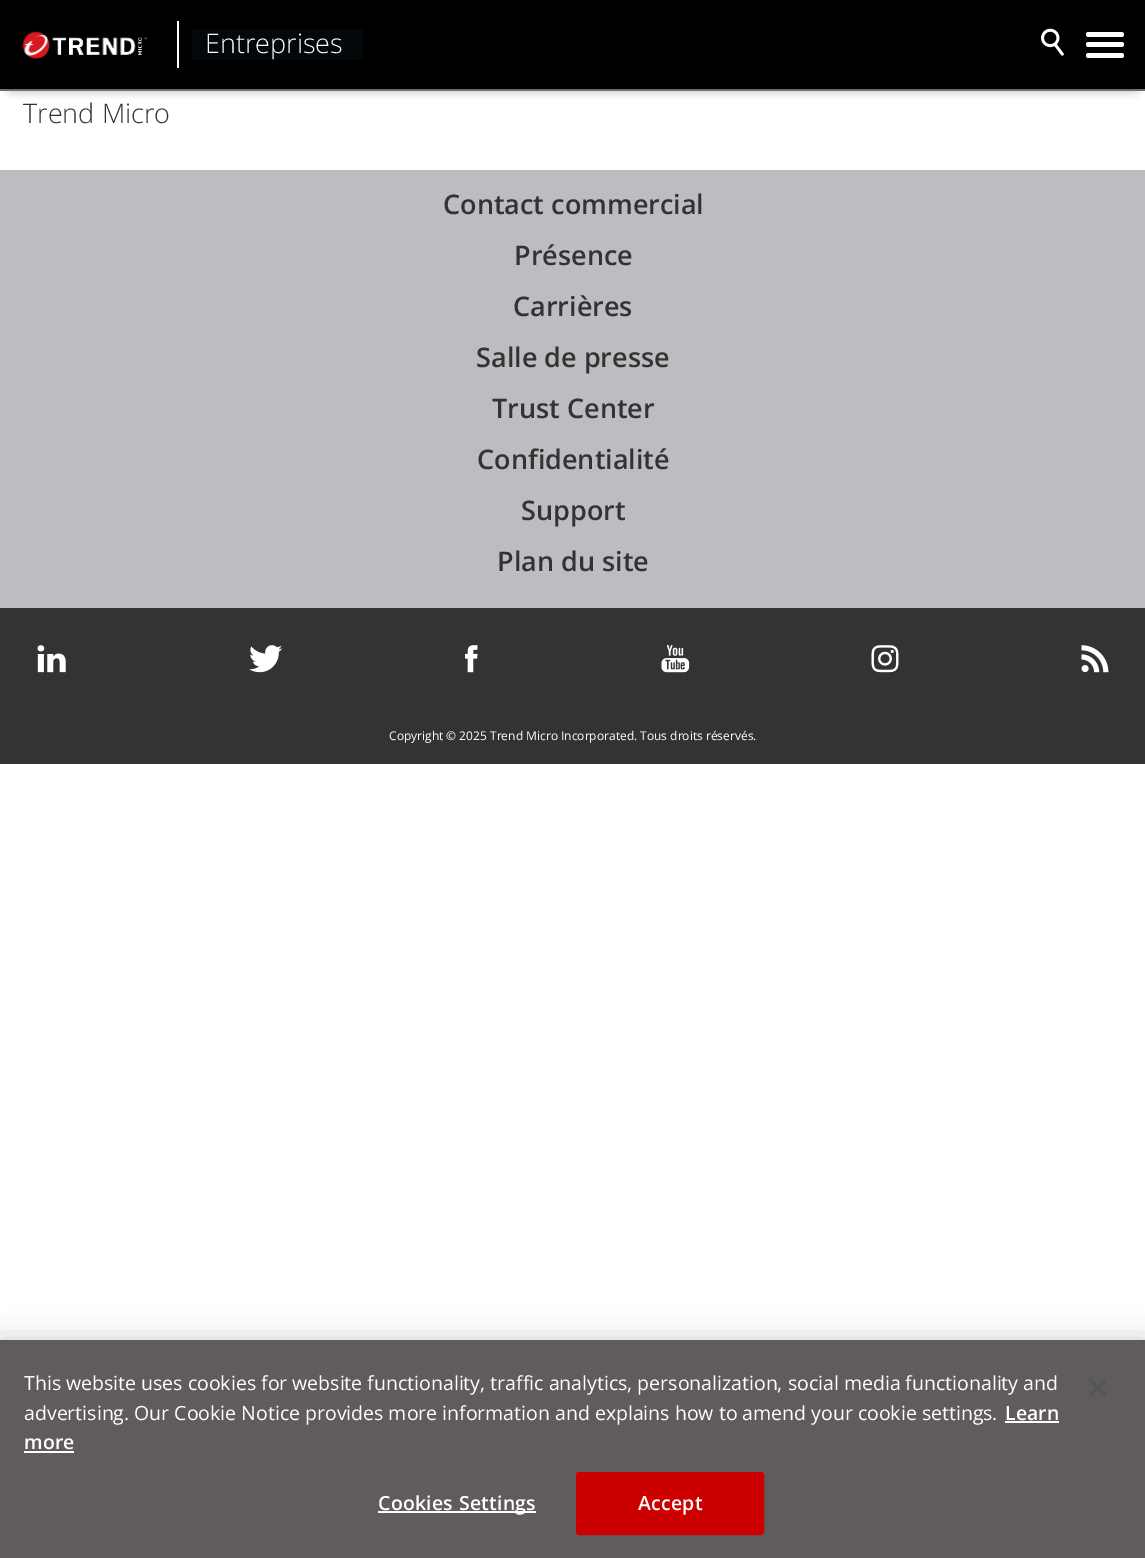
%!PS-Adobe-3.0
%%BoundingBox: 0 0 1145 1558
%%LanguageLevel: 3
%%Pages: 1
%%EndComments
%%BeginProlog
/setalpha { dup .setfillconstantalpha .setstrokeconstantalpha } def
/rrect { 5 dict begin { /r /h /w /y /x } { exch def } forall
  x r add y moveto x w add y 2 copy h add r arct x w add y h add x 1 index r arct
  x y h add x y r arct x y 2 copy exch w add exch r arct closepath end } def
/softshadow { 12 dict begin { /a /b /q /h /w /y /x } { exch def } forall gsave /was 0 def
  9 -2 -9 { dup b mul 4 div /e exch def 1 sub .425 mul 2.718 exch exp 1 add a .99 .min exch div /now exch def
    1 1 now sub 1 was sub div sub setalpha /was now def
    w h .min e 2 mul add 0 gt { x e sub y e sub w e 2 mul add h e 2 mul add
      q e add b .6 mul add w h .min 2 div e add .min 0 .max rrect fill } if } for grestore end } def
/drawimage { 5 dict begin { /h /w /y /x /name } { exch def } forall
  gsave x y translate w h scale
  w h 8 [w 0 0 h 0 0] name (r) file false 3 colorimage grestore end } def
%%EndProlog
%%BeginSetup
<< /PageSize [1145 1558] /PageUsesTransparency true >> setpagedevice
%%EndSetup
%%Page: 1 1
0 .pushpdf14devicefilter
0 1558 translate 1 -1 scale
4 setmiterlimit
1 setgray
0 0 1145 1558 rectfill
0 setgray
12 20 1122 66 0 6 0.75 softshadow
0 0 1145 89 rectfill
0.439 setgray
0 89 1145 2 rectfill
(images/1.raw) 22 31 125 28 drawimage
1 setgray
177 21 2 47 rectfill
0.008 0.027 0.035 setrgbcolor
192 29 171 31 rectfill
(images/2.raw) 1041 28 23 28 drawimage
1 setgray
1086 32 38 5 2.5 rrect fill
1086 42 38 5 2.5 rrect fill
1086 53 38 5 2.5 rrect fill
0.737 0.741 0.753 setrgbcolor
0 170 1145 438 rectfill
0.2 setgray
0 608 1145 156 rectfill
(images/3.raw) 37 645 29 28 drawimage
(images/4.raw) 249 645 34 28 drawimage
(images/5.raw) 465 645 13 28 drawimage
(images/6.raw) 661 645 29 28 drawimage
(images/7.raw) 871 645 28 28 drawimage
(images/8.raw) 1081 645 28 28 drawimage
0 setgray
0 1340 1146 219 0 13.5 0.2 softshadow
0.376 0.357 0.365 setrgbcolor
0 1340 1145 218 rectfill
1 setgray
1005 1421 54 2 rectfill
24 1451 50 2 rectfill
378 1511 158 2 rectfill
0.8 0 0 setrgbcolor
577 1473 186 61 2 rrect gsave fill grestore
2 setlinewidth
stroke
(images/9.raw) 1089 1379 18 18 drawimage
/OpenSans-Light [27 0 0 -27 0 0] selectfont
1 setgray
205 53 moveto (Entreprises) show
0.2 setgray
23 123 moveto (Trend Micro) show
/OpenSans-SemiBold [27 0 0 -27 0 0] selectfont
443 214 moveto (Contact commercial) show
514 265 moveto (Présence) show
513 316 moveto (Carrières) show
476 367 moveto (Salle de presse) show
492 418 moveto (Trust Center) show
477 469 moveto (Confidentialité) show
521 520 moveto (Support) show
497 571 moveto (Plan du site) show
/OpenSans-Regular [12 0 0 -12 0 0] selectfont
1 setgray
389 740 moveto (Copyright © 2025 Trend Micro Incorporated. Tous droits réservés.) show
/OpenSans-Regular [19.5 0 0 -19.5 0 0] selectfont
24 1390 moveto (This website uses cookies for website functionality, traffic analytics, personalization, social media functionality and) show
24 1420 moveto (advertising. Our Cookie Notice provides more information and explains how to amend your cookie settings.) show
/OpenSans-SemiBold [19.5 0 0 -19.5 0 0] selectfont
1005 1420 moveto (Learn) show
24 1449 moveto (more) show
378 1510 moveto 0.25 0 (Cookies Settings) ashow
638 1510 moveto 0.25 0 (Accept) ashow
.poppdf14devicefilter showpage
%%EOF
